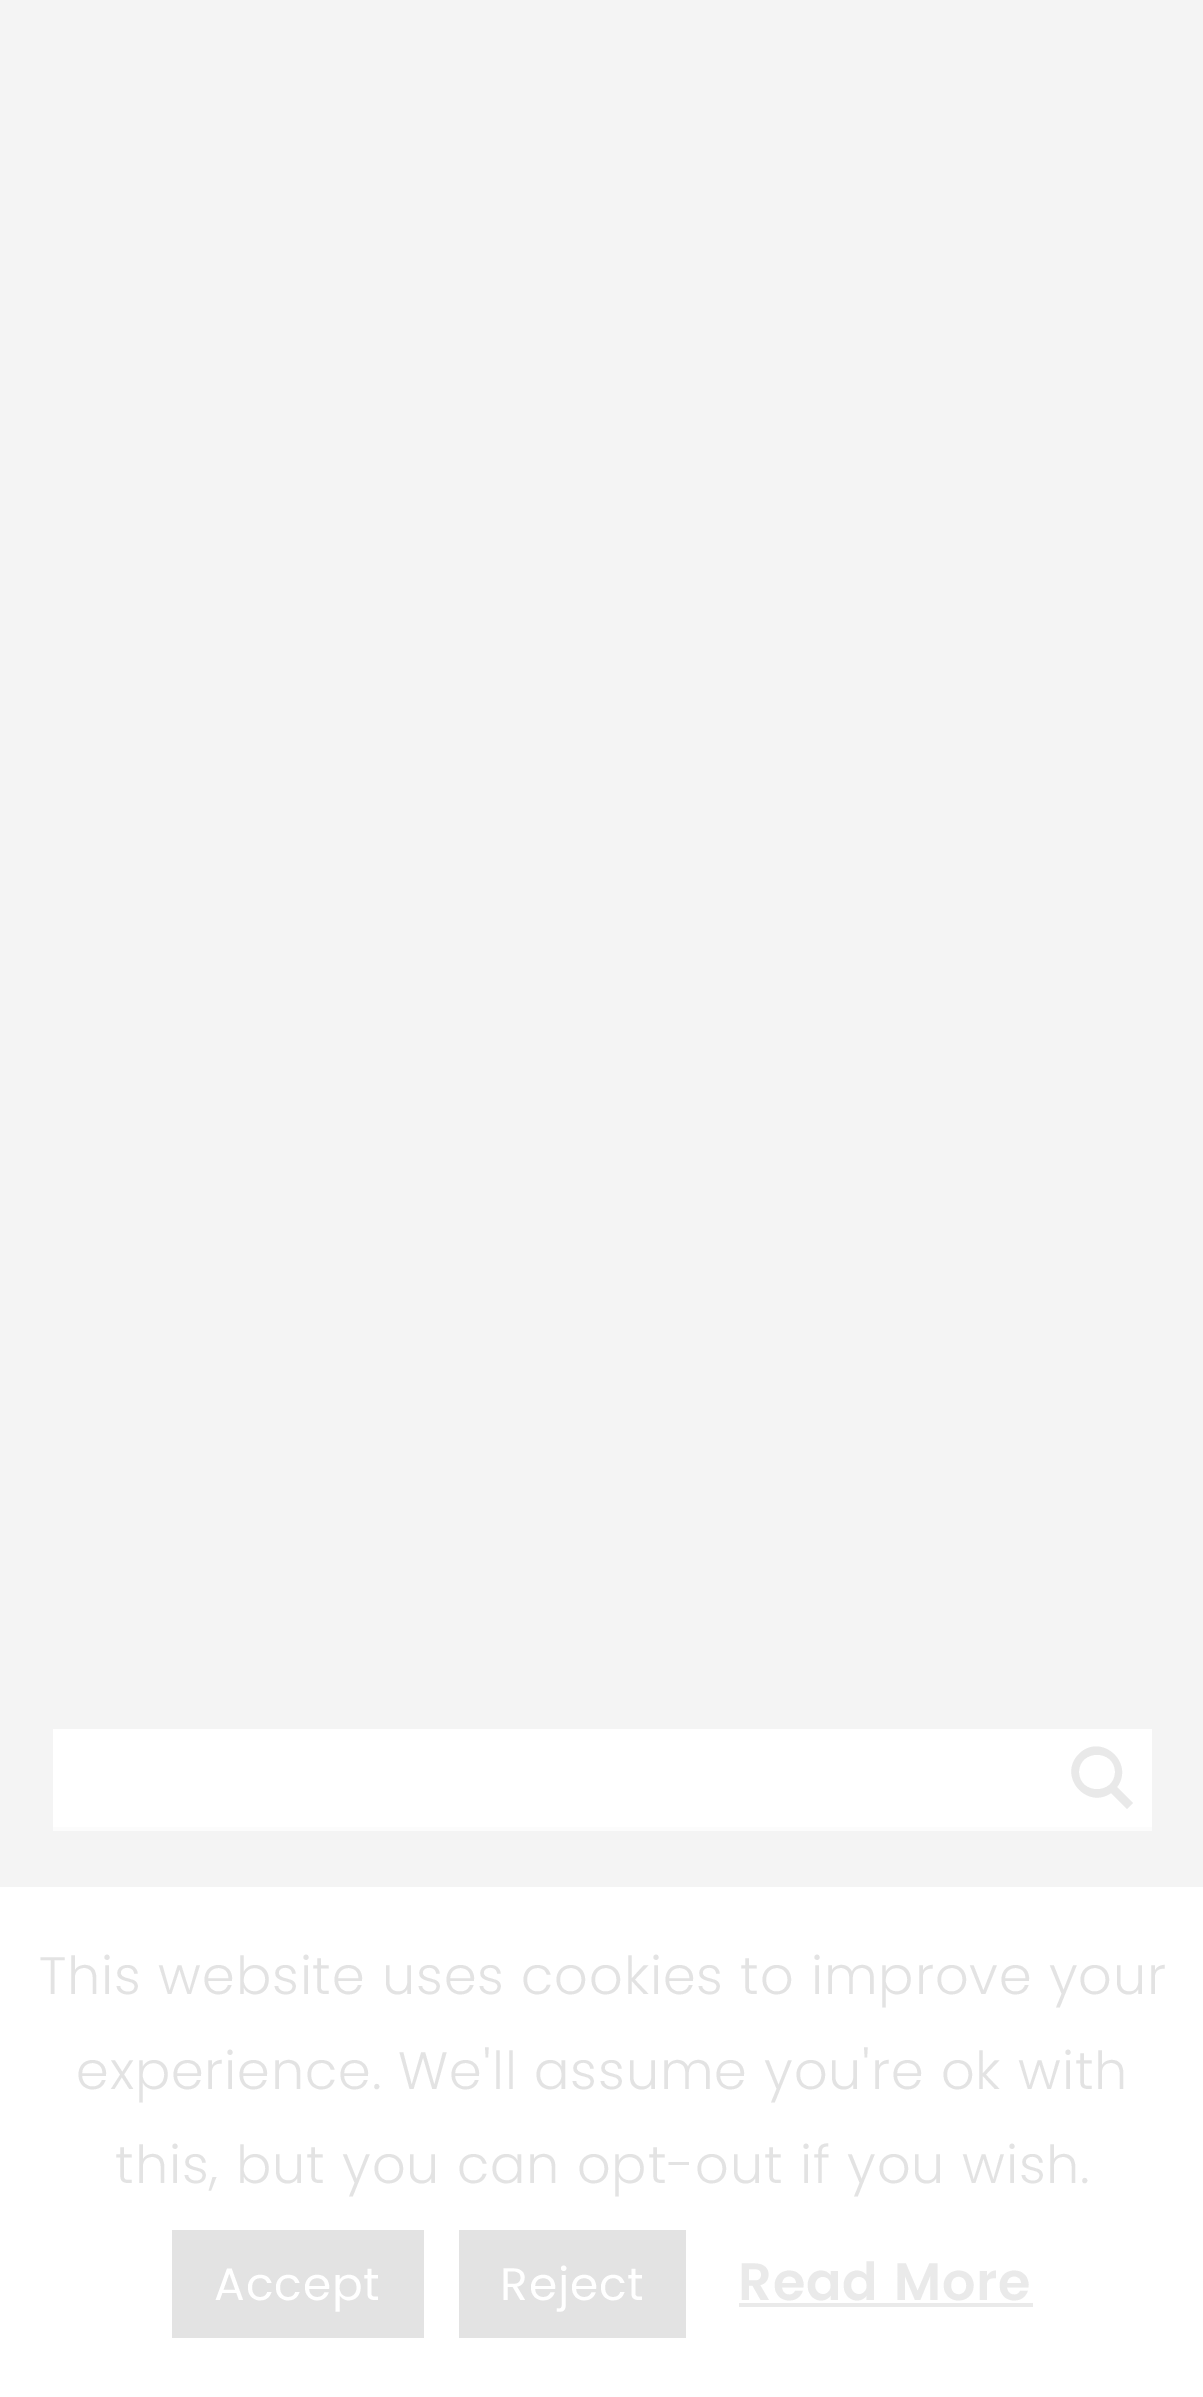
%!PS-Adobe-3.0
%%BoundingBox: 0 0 1203 2397
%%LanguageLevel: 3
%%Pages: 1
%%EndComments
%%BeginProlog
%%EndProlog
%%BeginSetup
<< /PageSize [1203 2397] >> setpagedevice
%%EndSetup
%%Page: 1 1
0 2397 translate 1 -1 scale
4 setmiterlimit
0.957 setgray
0 0 1203 2397 rectfill
0.988 setgray
newpath 53 1827 moveto 53 1831 lineto 1152 1831 lineto 1152 1733 lineto 1152 1827 lineto closepath fill
1 setgray
53 1729 1099 98 rectfill
0.914 setgray
newpath 1133 1803 moveto 1117 1787 lineto 1135 1763 1101 1732 1079 1754 curveto 1057 1776 1087 1810 1111 1793 curveto 1127 1809 lineto closepath 1079 1772 moveto 1079 1749 1115 1749 1115 1772 curveto 1115 1795 1079 1795 1079 1772 curveto closepath fill
1 setgray
0 1887 1203 510 rectfill
0.89 setgray
172 2230 252 108 rectfill
459 2230 227 108 rectfill
0.918 setgray
739 2303 294 4 rectfill
/Poppins-Light [52.5 0 0 -52.5 0 0] selectfont
0.89 setgray
39 1994 moveto 0.9 0 (This website uses cookies to improve your) ashow
76 2089 moveto 0.9 0 (experience. We'll assume you're ok with) ashow
115 2183 moveto 0.9 0 (this, but you can opt-out if you wish.) ashow
/Poppins-Regular [45.5 0 0 -45.5 0 0] selectfont
1 setgray
214 2300 moveto 0.9 0 (Accept) ashow
500 2300 moveto 0.9 0 (Reject) ashow
/Poppins-SemiBold [52.5 0 0 -52.5 0 0] selectfont
0.918 setgray
738 2300 moveto 0.9 0 (Read More) ashow
showpage
%%EOF
